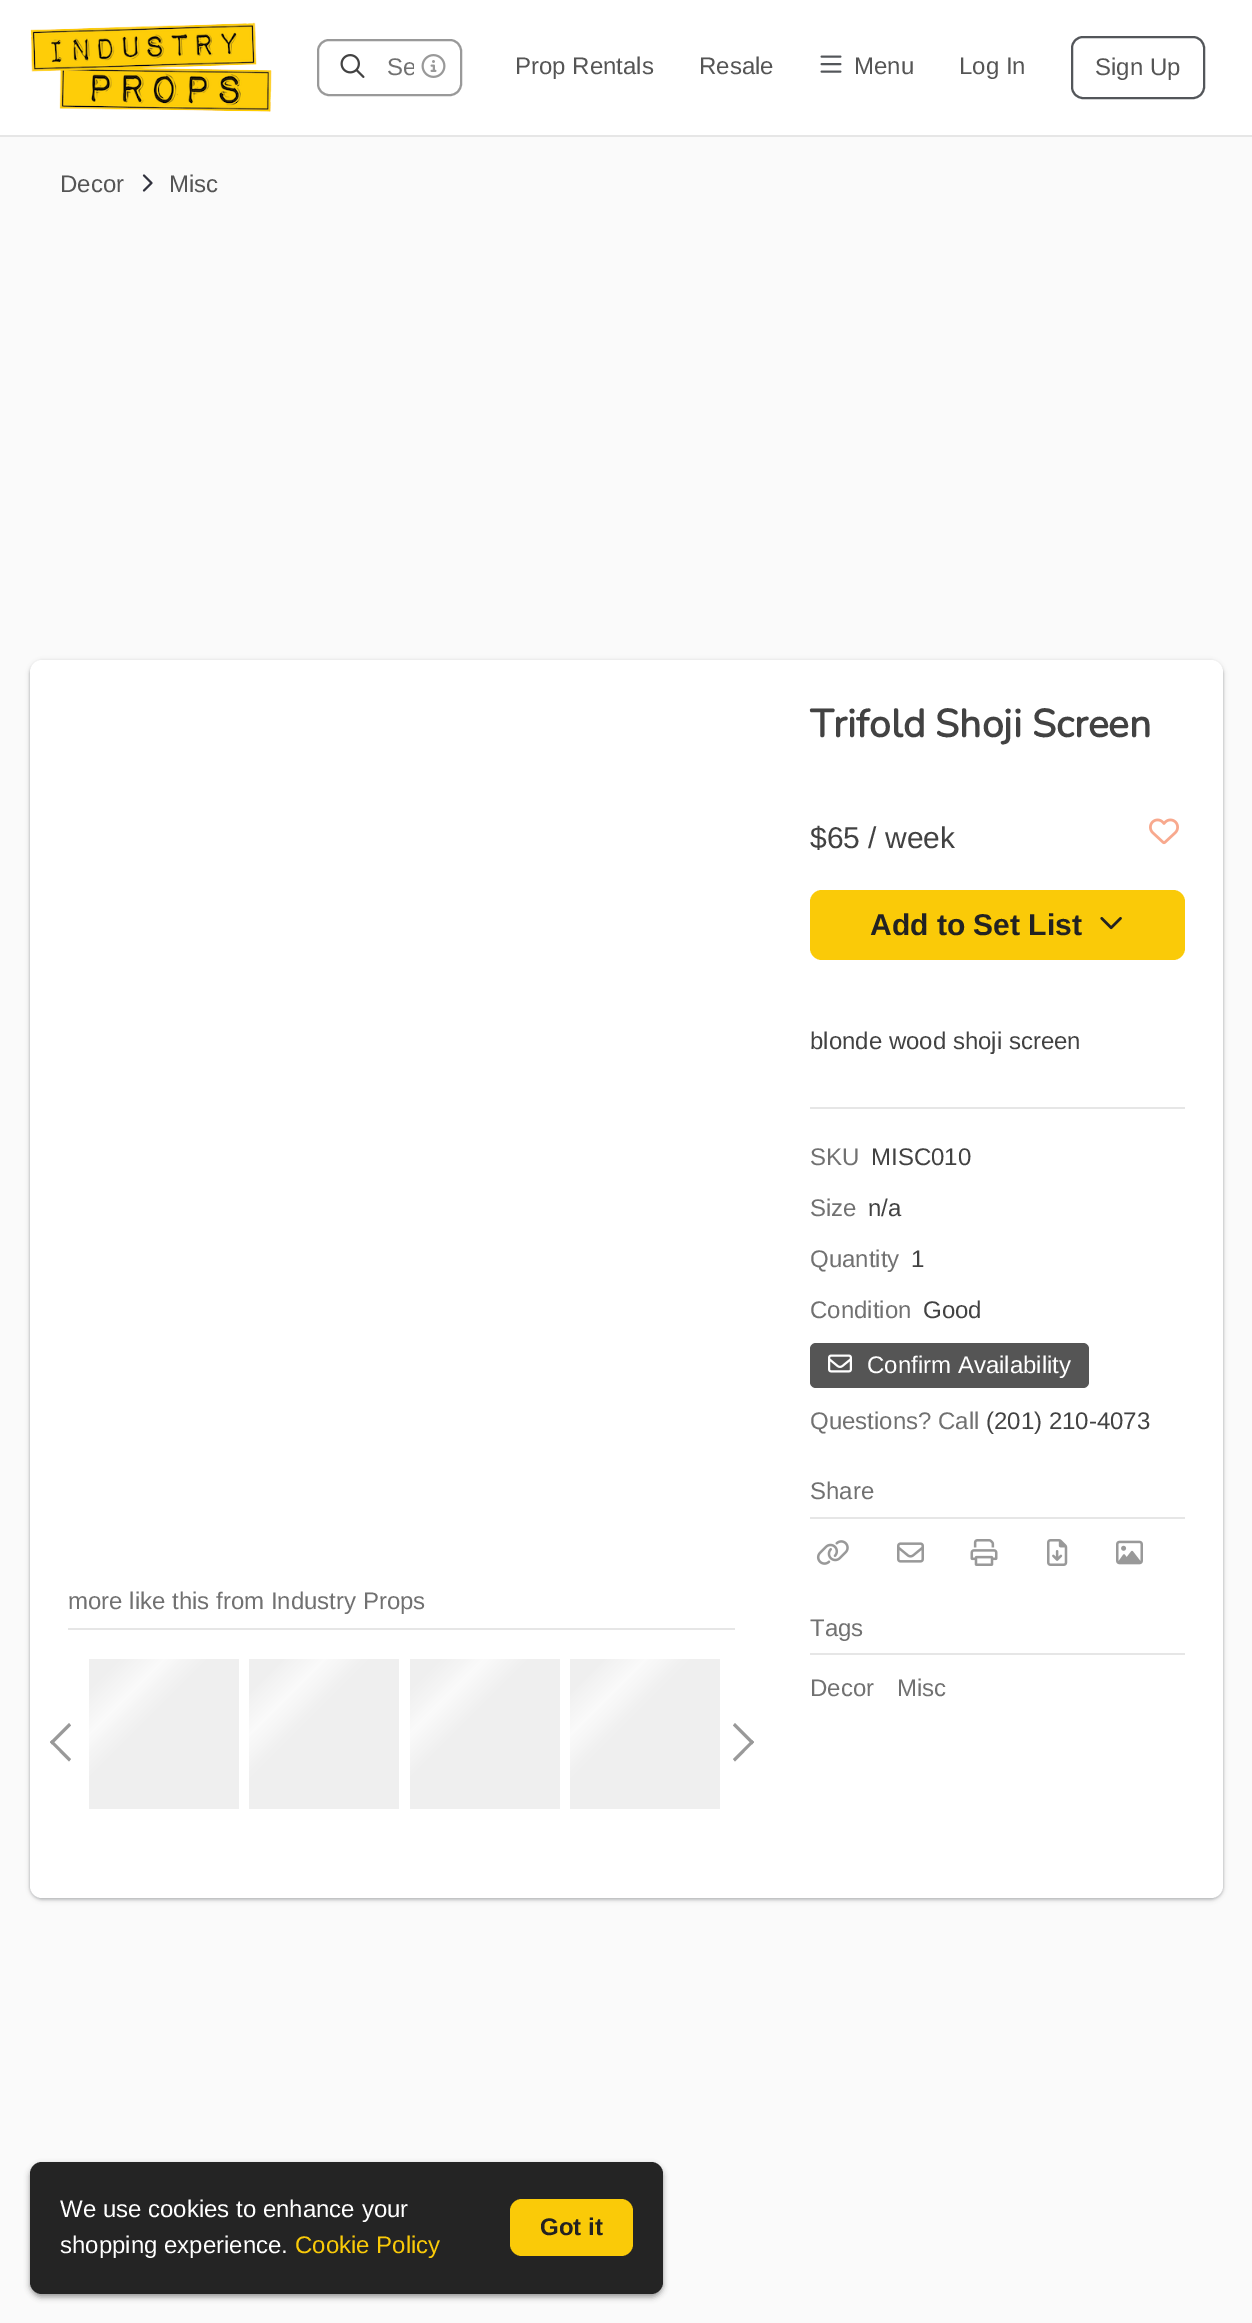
%!PS-Adobe-3.0
%%BoundingBox: 0 0 1252 2323
%%LanguageLevel: 3
%%Pages: 1
%%EndComments
%%BeginProlog
/setalpha { dup .setfillconstantalpha .setstrokeconstantalpha } def
/rrect { 5 dict begin { /r /h /w /y /x } { exch def } forall
  x r add y moveto x w add y 2 copy h add r arct x w add y h add x 1 index r arct
  x y h add x y r arct x y 2 copy exch w add exch r arct closepath end } def
/softshadow { 12 dict begin { /a /b /q /h /w /y /x } { exch def } forall gsave /was 0 def
  9 -2 -9 { dup b mul 4 div /e exch def 1 sub .425 mul 2.718 exch exp 1 add a .99 .min exch div /now exch def
    1 1 now sub 1 was sub div sub setalpha /was now def
    w h .min e 2 mul add 0 gt { x e sub y e sub w e 2 mul add h e 2 mul add
      q e add b .6 mul add w h .min 2 div e add .min 0 .max rrect fill } if } for grestore end } def
/drawimage { 5 dict begin { /h /w /y /x /name } { exch def } forall
  gsave x y translate w h scale
  w h 8 [w 0 0 h 0 0] name (r) file false 3 colorimage grestore end } def
%%EndProlog
%%BeginSetup
<< /PageSize [1252 2323] /PageUsesTransparency true >> setpagedevice
%%EndSetup
%%Page: 1 1
0 .pushpdf14devicefilter
0 2323 translate 1 -1 scale
4 setmiterlimit
1 setgray
0 0 1252 2323 rectfill
(images/1.raw) 30 22 242 90 drawimage
0.6 setgray
2 setlinewidth
318 40 143 55 11 rrect stroke
(images/2.raw) 340 54 25 24 drawimage
(images/3.raw) 421 54 25 24 drawimage
(images/4.raw) 820 55 22 18 drawimage
0.325 0.337 0.353 setrgbcolor
1072 37 132 61 11 rrect stroke
0.98 setgray
0 137 1252 2186 rectfill
0.902 setgray
0 135 1252 2 rectfill
(images/5.raw) 142 174 11 18 drawimage
0.235 0.251 0.263 setrgbcolor
29 660 1195 1241 14 2 0.15 softshadow
30 662 1193 1237 12 1.5 0.3 softshadow
1 setgray
30 660 1193 1238 12 rrect fill
(images/6.raw) 1149 818 30 27 drawimage
0.98 0.792 0.031 setrgbcolor
810 890 375 70 12 rrect fill
(images/7.raw) 1100 917 22 13 drawimage
0.902 setgray
810 1107 375 2 rectfill
68 1628 667 2 rectfill
0.6 setgray
newpath 69 1761.5 moveto 50 1742 lineto 52 1740 lineto 71 1759 lineto closepath fill
newpath 52 1744.5 moveto 50 1742 lineto 69 1723 lineto 71 1725.5 lineto closepath fill
gsave newpath 89 1659 moveto 239 1659 lineto 239 1809 lineto 89 1809 lineto closepath clip newpath
<< /ShadingType 2 /ColorSpace /DeviceRGB /Coords [201 1847 -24 1622] /Extend [true true] /Function << /FunctionType 3 /Domain [0 1] /Functions [<< /FunctionType 2 /Domain [0 1] /C0 [0.937 0.937 0.937] /C1 [0.937 0.937 0.937] /N 1 >> << /FunctionType 2 /Domain [0 1] /C0 [0.937 0.937 0.937] /C1 [0.98 0.98 0.98] /N 1 >> << /FunctionType 2 /Domain [0 1] /C0 [0.98 0.98 0.98] /C1 [0.937 0.937 0.937] /N 1 >> << /FunctionType 2 /Domain [0 1] /C0 [0.937 0.937 0.937] /C1 [0.937 0.937 0.937] /N 1 >>] /Bounds [0.4 0.5 0.6] /Encode [0 1 0 1 0 1 0 1] >> >> shfill grestore
gsave newpath 249 1659 moveto 399 1659 lineto 399 1809 lineto 249 1809 lineto closepath clip newpath
<< /ShadingType 2 /ColorSpace /DeviceRGB /Coords [362 1847 137 1622] /Extend [true true] /Function << /FunctionType 3 /Domain [0 1] /Functions [<< /FunctionType 2 /Domain [0 1] /C0 [0.937 0.937 0.937] /C1 [0.937 0.937 0.937] /N 1 >> << /FunctionType 2 /Domain [0 1] /C0 [0.937 0.937 0.937] /C1 [0.98 0.98 0.98] /N 1 >> << /FunctionType 2 /Domain [0 1] /C0 [0.98 0.98 0.98] /C1 [0.937 0.937 0.937] /N 1 >> << /FunctionType 2 /Domain [0 1] /C0 [0.937 0.937 0.937] /C1 [0.937 0.937 0.937] /N 1 >>] /Bounds [0.4 0.5 0.6] /Encode [0 1 0 1 0 1 0 1] >> >> shfill grestore
gsave newpath 410 1659 moveto 560 1659 lineto 560 1809 lineto 410 1809 lineto closepath clip newpath
<< /ShadingType 2 /ColorSpace /DeviceRGB /Coords [522 1847 297 1622] /Extend [true true] /Function << /FunctionType 3 /Domain [0 1] /Functions [<< /FunctionType 2 /Domain [0 1] /C0 [0.937 0.937 0.937] /C1 [0.937 0.937 0.937] /N 1 >> << /FunctionType 2 /Domain [0 1] /C0 [0.937 0.937 0.937] /C1 [0.98 0.98 0.98] /N 1 >> << /FunctionType 2 /Domain [0 1] /C0 [0.98 0.98 0.98] /C1 [0.937 0.937 0.937] /N 1 >> << /FunctionType 2 /Domain [0 1] /C0 [0.937 0.937 0.937] /C1 [0.937 0.937 0.937] /N 1 >>] /Bounds [0.4 0.5 0.6] /Encode [0 1 0 1 0 1 0 1] >> >> shfill grestore
gsave newpath 570 1659 moveto 720 1659 lineto 720 1809 lineto 570 1809 lineto closepath clip newpath
<< /ShadingType 2 /ColorSpace /DeviceRGB /Coords [683 1847 458 1622] /Extend [true true] /Function << /FunctionType 3 /Domain [0 1] /Functions [<< /FunctionType 2 /Domain [0 1] /C0 [0.937 0.937 0.937] /C1 [0.937 0.937 0.937] /N 1 >> << /FunctionType 2 /Domain [0 1] /C0 [0.937 0.937 0.937] /C1 [0.98 0.98 0.98] /N 1 >> << /FunctionType 2 /Domain [0 1] /C0 [0.98 0.98 0.98] /C1 [0.937 0.937 0.937] /N 1 >> << /FunctionType 2 /Domain [0 1] /C0 [0.937 0.937 0.937] /C1 [0.937 0.937 0.937] /N 1 >>] /Bounds [0.4 0.5 0.6] /Encode [0 1 0 1 0 1 0 1] >> >> shfill grestore
newpath 735 1723 moveto 754 1742 lineto 752 1744.5 lineto 733 1725.5 lineto closepath fill
newpath 752 1740 moveto 754 1742 lineto 735 1761.5 lineto 733 1759 lineto closepath fill
0.333 setgray
810 1343 279 45 6 rrect fill
(images/8.raw) 828 1354 24 19 drawimage
0.902 setgray
810 1517 375 2 rectfill
(images/9.raw) 816 1540 33 25 drawimage
(images/10.raw) 897 1542 27 21 drawimage
(images/11.raw) 970 1539 28 27 drawimage
(images/12.raw) 1047 1539 21 27 drawimage
(images/13.raw) 1116 1540 27 25 drawimage
810 1653 375 2 rectfill
0.196 setgray
30 2165 633 132 12 3 0.5 softshadow
0.141 setgray
30 2162 633 132 12 rrect fill
0.98 0.792 0.031 setrgbcolor
510 2199 123 57 12 rrect fill
gsave
387 54 27 27 rectclip
/LiberationSans-Regular [24 0 0 -24 0 0] selectfont
0.443 setgray
387 75 moveto (Se) show
grestore
/LiberationSans-Regular [24 0 0 -24 0 0] selectfont
0.333 setgray
515 74 moveto (Prop Rentals) show
699 74 moveto (Resale) show
854 74 moveto (Menu) show
959 74 moveto (Log In) show
1095 75 moveto (Sign Up) show
60 192 moveto (Decor) show
169 192 moveto (Misc) show
/Nunito-Bold [39 0 0 -39 0 0] selectfont
0.259 setgray
810 737 moveto (Trifold Shoji Screen) show
/LiberationSans-Regular [30 0 0 -30 0 0] selectfont
810 848 moveto ($65 / week) show
/LiberationSans-Bold [30 0 0 -30 0 0] selectfont
0.133 setgray
870 935 moveto (Add to Set List) show
/LiberationSans-Regular [24 0 0 -24 0 0] selectfont
0.259 setgray
810 1049 moveto (blonde wood shoji screen) show
0.443 setgray
68 1609 moveto (more like this from Industry Props) show
810 1165 moveto (SKU) show
0.259 setgray
871 1165 moveto (MISC010) show
0.443 setgray
810 1216 moveto (Size) show
0.259 setgray
868 1216 moveto (n/a) show
0.443 setgray
810 1267 moveto (Quantity) show
0.259 setgray
911 1267 moveto (1) show
0.443 setgray
810 1318 moveto (Condition) show
0.259 setgray
923 1318 moveto (Good) show
1 setgray
867 1373 moveto (Confirm Availability) show
0.443 setgray
810 1429 moveto (Questions? Call) show
0.259 setgray
986 1429 moveto (\(201\) 210-4073) show
0.443 setgray
810 1499 moveto (Share) show
810 1636 moveto (Tags) show
810 1696 moveto (Decor) show
897 1696 moveto (Misc) show
1 setgray
60 2217 moveto (We use cookies to enhance your) show
60 2253 moveto (shopping experience.) show
0.98 0.792 0.031 setrgbcolor
295 2253 moveto (Cookie Policy) show
/LiberationSans-Bold [24 0 0 -24 0 0] selectfont
0.133 setgray
540 2235 moveto (Got it) show
.poppdf14devicefilter showpage
%%EOF
